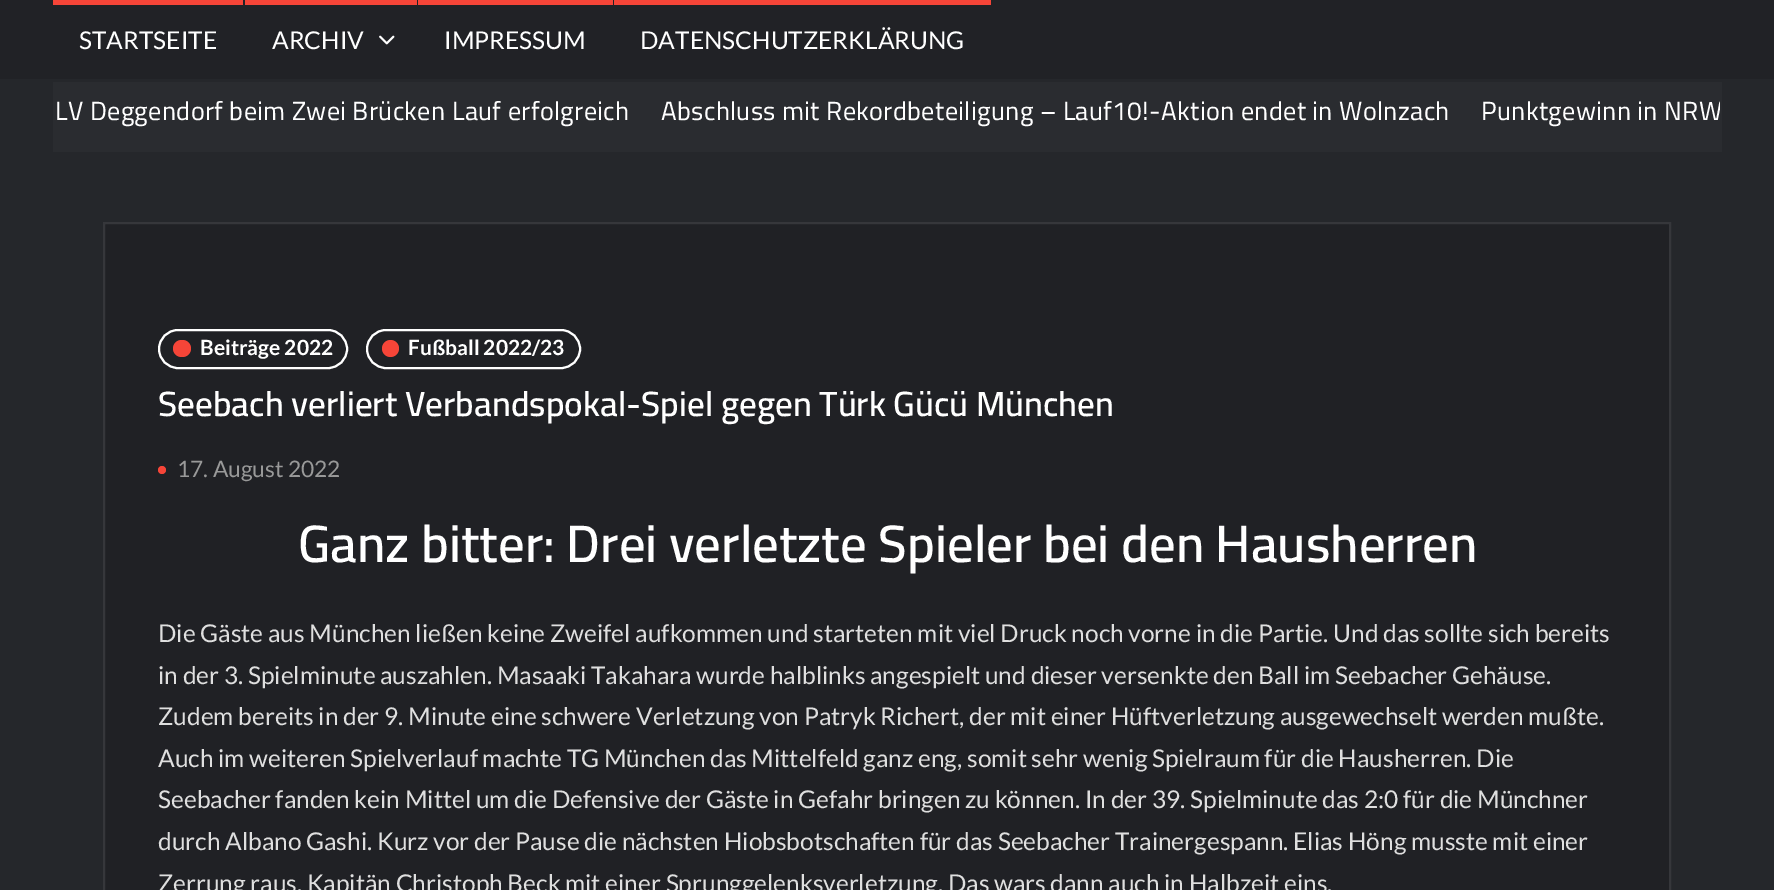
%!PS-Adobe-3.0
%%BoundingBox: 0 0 1774 890
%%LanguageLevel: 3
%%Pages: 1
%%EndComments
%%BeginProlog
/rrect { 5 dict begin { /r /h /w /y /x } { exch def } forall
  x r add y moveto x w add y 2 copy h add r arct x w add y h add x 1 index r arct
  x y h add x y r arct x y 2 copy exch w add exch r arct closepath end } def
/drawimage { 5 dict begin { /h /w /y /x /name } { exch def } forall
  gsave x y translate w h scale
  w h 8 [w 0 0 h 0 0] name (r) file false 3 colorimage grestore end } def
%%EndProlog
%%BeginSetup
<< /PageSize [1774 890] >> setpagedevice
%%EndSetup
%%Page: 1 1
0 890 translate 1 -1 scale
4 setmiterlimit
0.145 0.153 0.169 setrgbcolor
0 0 1774 890 rectfill
0.129 0.133 0.149 setrgbcolor
0 0 1774 79 rectfill
0.965 0.271 0.22 setrgbcolor
53 0 190 5 rectfill
245 0 172 5 rectfill
(images/1.raw) 379 35 16 10 drawimage
418 0 195 5 rectfill
614 0 377 5 rectfill
0.165 0.173 0.188 setrgbcolor
53 82 1669 70 rectfill
0.125 0.129 0.145 setrgbcolor
newpath 104 223 moveto 1670 223 lineto 1670 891 lineto 104 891 lineto closepath gsave fill grestore
0.212 0.216 0.231 setrgbcolor
2 setlinewidth
stroke
1 setgray
159 330 188 38 19 rrect stroke
0.965 0.271 0.22 setrgbcolor
173 340 18 17 8.5 rrect fill
1 setgray
367 330 213 38 19 rrect stroke
0.965 0.271 0.22 setrgbcolor
newpath 390.5 348.5 8.5 0 360 arc closepath fill
newpath 162 470 4 0 360 arc closepath fill
/Lato-Regular [24.5 0 0 -24.5 0 0] selectfont
1 setgray
79 49 moveto (STARTSEITE) show
272 49 moveto (ARCHIV) show
444 49 moveto (IMPRESSUM) show
640 49 moveto (DATENSCHUTZERKLÄRUNG) show
/Cairo-Regular [26.25 0 0 -26.25 0 0] selectfont
55 120 moveto 0.35 0 (LV Deggendorf beim Zwei Brücken Lauf erfolgreich) ashow
661 120 moveto 0.35 0 (Abschluss mit Rekordbeteiligung – Lauf10!-Aktion endet in Wolnzach) ashow
gsave
54 84 1666 67 rectclip
1481 120 moveto 0.35 0 (Punktgewinn in NRW) ashow
grestore
/Lato-Bold [21 0 0 -21 0 0] selectfont
200 355 moveto (Beiträge 2022) show
408 355 moveto (Fußball 2022/23) show
/Cairo-SemiBold [35 0 0 -35 0 0] selectfont
158 416 moveto (Seebach verliert Verbandspokal-Spiel gegen Türk Gücü München) show
/Lato-Regular [22.75 0 0 -22.75 0 0] selectfont
0.6 setgray
177 477 moveto (17. August 2022) show
/Cairo-SemiBold [52.5 0 0 -52.5 0 0] selectfont
1 setgray
298 562 moveto (Ganz bitter: Drei verletzte Spieler bei den Hausherren) show
/Lato-Regular [24.5 0 0 -24.5 0 0] selectfont
0.875 setgray
158 642 moveto (Die Gäste aus München ließen keine Zweifel aufkommen und starteten mit viel Druck noch vorne in die Partie. Und das sollte sich bereits) show
158 684 moveto (in der 3. Spielminute auszahlen. Masaaki Takahara wurde halblinks angespielt und dieser versenkte den Ball im Seebacher Gehäuse.) show
158 725 moveto (Zudem bereits in der 9. Minute eine schwere Verletzung von Patryk Richert, der mit einer Hüftverletzung ausgewechselt werden mußte.) show
158 767 moveto (Auch im weiteren Spielverlauf machte TG München das Mittelfeld ganz eng, somit sehr wenig Spielraum für die Hausherren. Die) show
158 808 moveto (Seebacher fanden kein Mittel um die Defensive der Gäste in Gefahr bringen zu können. In der 39. Spielminute das 2:0 für die Münchner) show
158 850 moveto (durch Albano Gashi. Kurz vor der Pause die nächsten Hiobsbotschaften für das Seebacher Trainergespann. Elias Höng musste mit einer) show
158 892 moveto (Zerrung raus, Kapitän Christoph Beck mit einer Sprunggelenksverletzung. Das wars dann auch in Halbzeit eins.) show
showpage
%%EOF
